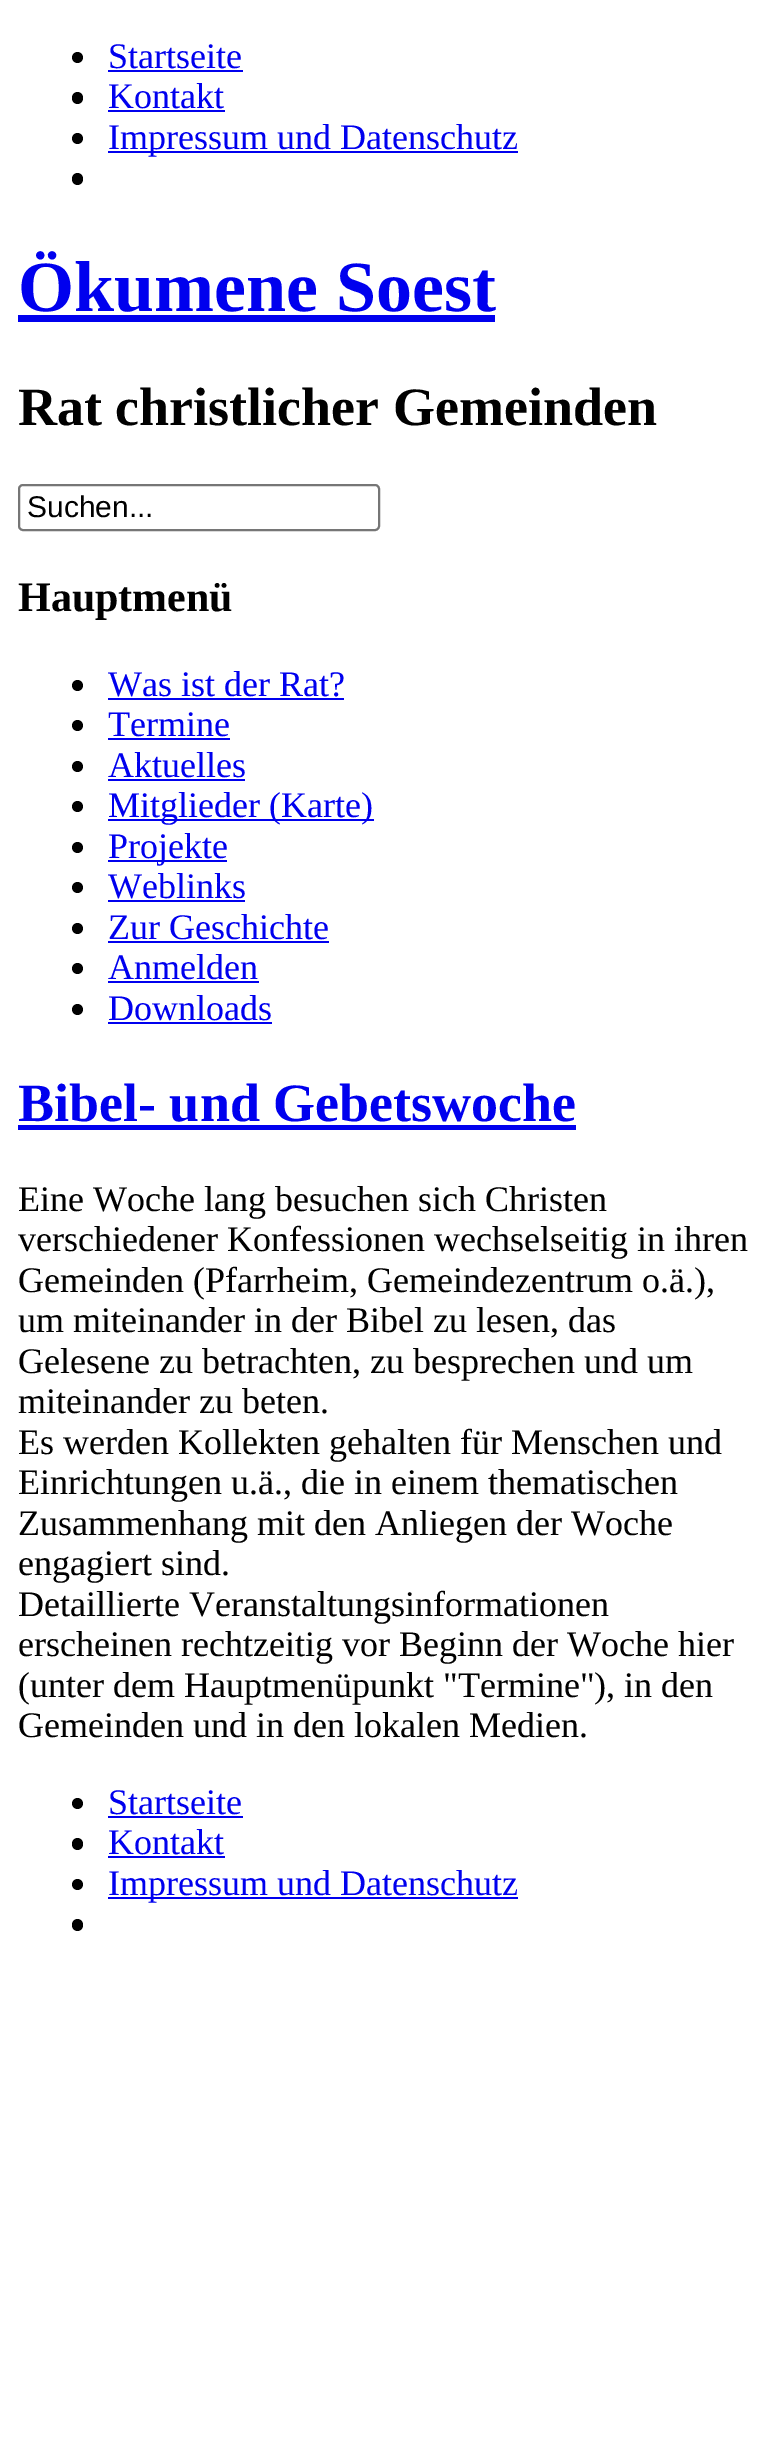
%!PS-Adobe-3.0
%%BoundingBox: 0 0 772 2437
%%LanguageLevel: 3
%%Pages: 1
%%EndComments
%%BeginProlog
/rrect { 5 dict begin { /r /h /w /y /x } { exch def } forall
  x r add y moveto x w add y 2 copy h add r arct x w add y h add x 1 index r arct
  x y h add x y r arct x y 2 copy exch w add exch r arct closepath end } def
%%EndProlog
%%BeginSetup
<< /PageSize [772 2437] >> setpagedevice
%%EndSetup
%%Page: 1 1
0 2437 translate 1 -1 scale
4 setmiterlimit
1 setgray
0 0 772 2437 rectfill
0 setgray
newpath 77.5 57.5 5.5 0 360 arc closepath fill
0 0 0.933 setrgbcolor
108 70 135 2 rectfill
0 setgray
72 92 11 12 5.5 rrect fill
0 0 0.933 setrgbcolor
108 110 117 2 rectfill
0 setgray
newpath 77.5 138.5 5.5 0 360 arc closepath fill
0 0 0.933 setrgbcolor
108 151 410 2 rectfill
0 setgray
72 173 11 12 5.5 rrect fill
0 0 0.933 setrgbcolor
18 315 477 7 rectfill
0.463 setgray
2 setlinewidth
19 485 360 45 4 rrect stroke
0 setgray
newpath 77.5 685.5 5.5 0 360 arc closepath fill
0 0 0.933 setrgbcolor
108 698 236 2 rectfill
0 setgray
newpath 77.5 725.5 5.5 0 360 arc closepath fill
0 0 0.933 setrgbcolor
108 738 122 2 rectfill
0 setgray
newpath 77.5 766.5 5.5 0 360 arc closepath fill
0 0 0.933 setrgbcolor
108 779 137 2 rectfill
0 setgray
newpath 77.5 806.5 5.5 0 360 arc closepath fill
0 0 0.933 setrgbcolor
108 819 266 2 rectfill
0 setgray
newpath 77.5 847.5 5.5 0 360 arc closepath fill
0 0 0.933 setrgbcolor
108 860 119 2 rectfill
0 setgray
newpath 77.5 887.5 5.5 0 360 arc closepath fill
0 0 0.933 setrgbcolor
108 900 137 2 rectfill
0 setgray
newpath 77.5 928.5 5.5 0 360 arc closepath fill
0 0 0.933 setrgbcolor
108 941 221 2 rectfill
0 setgray
newpath 77.5 968.5 5.5 0 360 arc closepath fill
0 0 0.933 setrgbcolor
108 981 151 2 rectfill
0 setgray
newpath 77.5 1009.5 5.5 0 360 arc closepath fill
0 0 0.933 setrgbcolor
108 1022 164 2 rectfill
18 1125 558 5 rectfill
0 setgray
newpath 77.5 1803.5 5.5 0 360 arc closepath fill
0 0 0.933 setrgbcolor
108 1816 135 2 rectfill
0 setgray
72 1838 11 12 5.5 rrect fill
0 0 0.933 setrgbcolor
108 1856 117 2 rectfill
0 setgray
newpath 77.5 1884.5 5.5 0 360 arc closepath fill
0 0 0.933 setrgbcolor
108 1897 410 2 rectfill
0 setgray
72 1919 11 12 5.5 rrect fill
/LiberationSerif-Regular [36 0 0 -36 0 0] selectfont
0 0 0.933 setrgbcolor
108 68 moveto (Startseite) show
108 108 moveto (Kontakt) show
108 149 moveto (Impressum und Datenschutz) show
/LiberationSerif-Bold [72 0 0 -72 0 0] selectfont
18 311 moveto (Ökumene Soest) show
/LiberationSerif-Bold [54 0 0 -54 0 0] selectfont
0 setgray
18 425 moveto (Rat christlicher Gemeinden) show
/LiberationSans-Regular [30 0 0 -30 0 0] selectfont
27 517 moveto (Suchen...) show
/LiberationSerif-Bold [42 0 0 -42 0 0] selectfont
18 611 moveto (Hauptmenü) show
/LiberationSerif-Regular [36 0 0 -36 0 0] selectfont
0 0 0.933 setrgbcolor
108 696 moveto (Was ist der Rat?) show
108 736 moveto (Termine) show
108 777 moveto (Aktuelles) show
108 817 moveto (Mitglieder \(Karte\)) show
108 858 moveto (Projekte) show
108 898 moveto (Weblinks) show
108 939 moveto (Zur Geschichte) show
108 979 moveto (Anmelden) show
108 1020 moveto (Downloads) show
/LiberationSerif-Bold [54 0 0 -54 0 0] selectfont
18 1121 moveto (Bibel- und Gebetswoche) show
/LiberationSerif-Regular [36 0 0 -36 0 0] selectfont
0 setgray
18 1211 moveto (Eine Woche lang besuchen sich Christen) show
18 1251 moveto (verschiedener Konfessionen wechselseitig in ihren) show
18 1292 moveto (Gemeinden \(Pfarrheim, Gemeindezentrum o.ä.\),) show
18 1332 moveto (um miteinander in der Bibel zu lesen, das) show
18 1373 moveto (Gelesene zu betrachten, zu besprechen und um) show
18 1413 moveto (miteinander zu beten.) show
18 1454 moveto (Es werden Kollekten gehalten für Menschen und) show
18 1494 moveto (Einrichtungen u.ä., die in einem thematischen) show
18 1535 moveto (Zusammenhang mit den Anliegen der Woche) show
18 1575 moveto (engagiert sind.) show
18 1616 moveto (Detaillierte Veranstaltungsinformationen) show
18 1656 moveto (erscheinen rechtzeitig vor Beginn der Woche hier) show
18 1697 moveto (\(unter dem Hauptmenüpunkt "Termine"\), in den) show
18 1737 moveto (Gemeinden und in den lokalen Medien.) show
0 0 0.933 setrgbcolor
108 1814 moveto (Startseite) show
108 1854 moveto (Kontakt) show
108 1895 moveto (Impressum und Datenschutz) show
showpage
%%EOF
